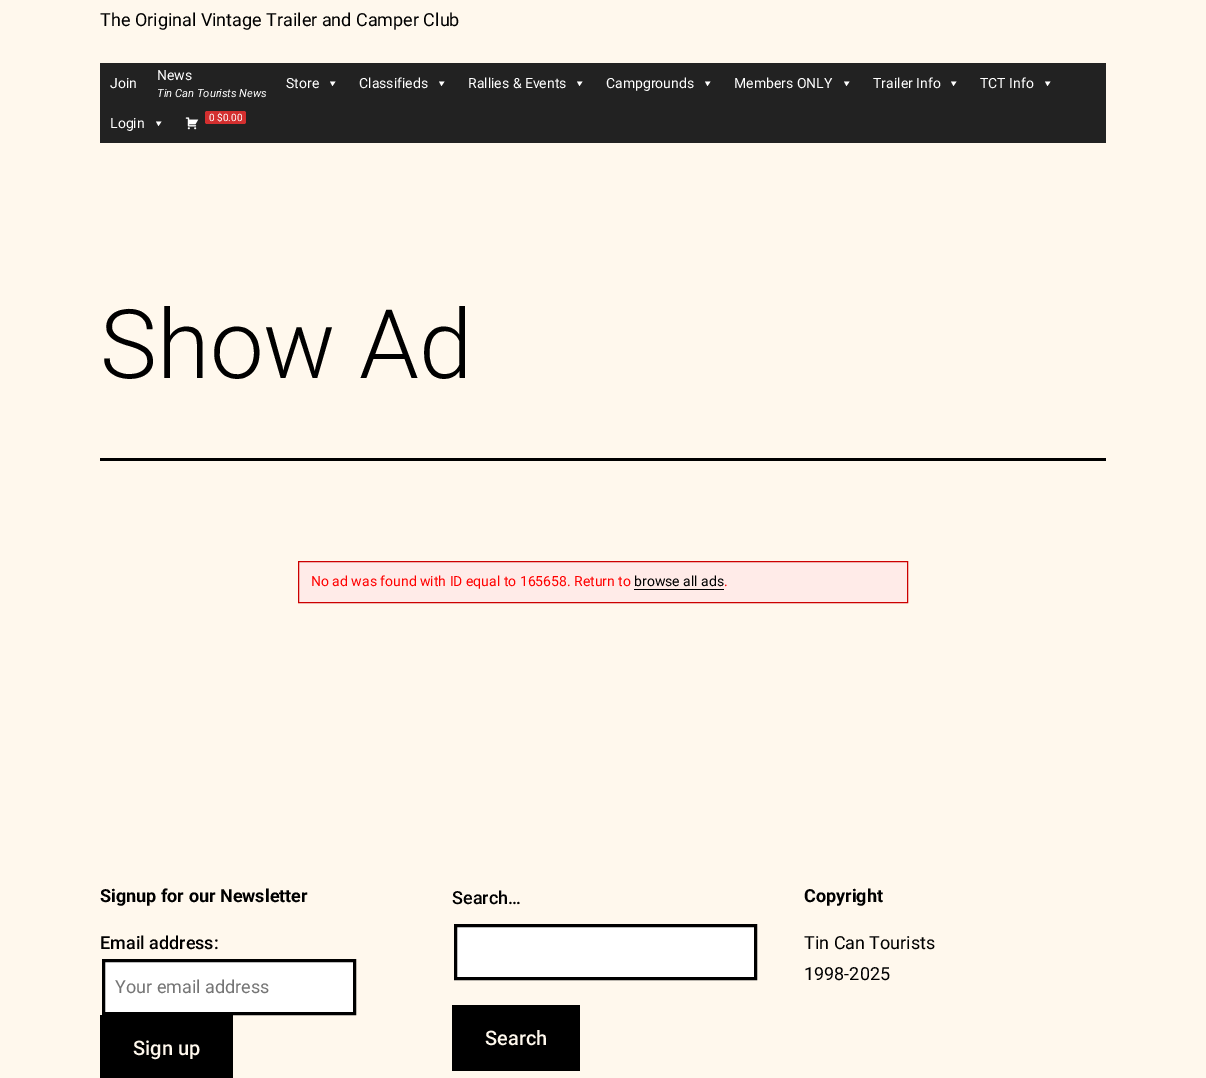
%!PS-Adobe-3.0
%%BoundingBox: 0 0 1206 1078
%%LanguageLevel: 3
%%Pages: 1
%%EndComments
%%BeginProlog
/drawimage { 5 dict begin { /h /w /y /x /name } { exch def } forall
  gsave x y translate w h scale
  w h 8 [w 0 0 h 0 0] name (r) file false 3 colorimage grestore end } def
%%EndProlog
%%BeginSetup
<< /PageSize [1206 1078] >> setpagedevice
%%EndSetup
%%Page: 1 1
0 1078 translate 1 -1 scale
4 setmiterlimit
1 0.973 0.929 setrgbcolor
0 0 1206 1078 rectfill
0.133 setgray
100 63 1006 80 rectfill
1 setgray
newpath 335.5 81.5 moveto 332.5 86 lineto 330 81.5 lineto closepath fill
newpath 444.5 81.5 moveto 441.5 86 lineto 439 81.5 lineto closepath fill
newpath 582.5 81.5 moveto 579.5 86 lineto 577 81.5 lineto closepath fill
newpath 710.5 81.5 moveto 707.5 86 lineto 705 81.5 lineto closepath fill
newpath 849.5 81.5 moveto 846.5 86 lineto 844 81.5 lineto closepath fill
newpath 956.5 81.5 moveto 953.5 86 lineto 951 81.5 lineto closepath fill
newpath 1050.5 81.5 moveto 1047.5 86 lineto 1045 81.5 lineto closepath fill
newpath 161.5 121.5 moveto 158.5 126 lineto 156 121.5 lineto closepath fill
(images/1.raw) 185 117 14 13 drawimage
0.827 0.184 0.184 setrgbcolor
newpath 207 111 moveto 214 111 lineto 214 124 lineto 207 124 lineto 206 124 205 123 205 122 curveto 205 113 lineto 205 112 206 111 207 111 curveto closepath fill
214 111 3 13 rectfill
newpath 217 111 moveto 244 111 lineto 245 111 246 112 246 113 curveto 246 122 lineto 246 123 245 124 244 124 curveto 217 124 lineto closepath fill
0 setgray
100 458 1006 3 rectfill
1 0.922 0.91 setrgbcolor
newpath 298.5 561.5 moveto 907.5 561.5 lineto 907.5 602.5 lineto 298.5 602.5 lineto closepath gsave fill grestore
0.8 0 0 setrgbcolor
stroke
0 setgray
634 589 90 1 rectfill
1 setgray
newpath 103.5 960.5 moveto 354.5 960.5 lineto 354.5 1013.5 lineto 103.5 1013.5 lineto closepath gsave fill grestore
0 setgray
3 setlinewidth
stroke
100 1015 133 63 rectfill
1 setgray
newpath 455.5 925.5 moveto 755.5 925.5 lineto 755.5 978.5 lineto 455.5 978.5 lineto closepath gsave fill grestore
0 setgray
stroke
452 1005 128 66 rectfill
/Roboto-Regular [18 0 0 -18 0 0] selectfont
100 26 moveto (The Original Vintage Trailer and Camper Club) show
/Roboto-Regular [14 0 0 -14 0 0] selectfont
1 setgray
110 88 moveto (Join) show
157 80 moveto (News) show
/Roboto-Italic [11.25 0 0 -11.25 0 0] selectfont
157 97 moveto (Tin Can Tourists News) show
/Roboto-Regular [14 0 0 -14 0 0] selectfont
286 88 moveto (Store) show
359 88 moveto (Classifieds) show
468 88 moveto (Rallies & Events) show
606 88 moveto (Campgrounds) show
734 88 moveto (Members ONLY) show
873 88 moveto (Trailer Info) show
980 88 moveto (TCT Info) show
110 128 moveto (Login) show
/Roboto-Regular [10 0 0 -10 0 0] selectfont
209 121 moveto (0 $0.00) show
/Roboto-Light [96 0 0 -96 0 0] selectfont
0 setgray
100 378 moveto (Show Ad) show
/Roboto-Regular [14 0 0 -14 0 0] selectfont
1 0 0 setrgbcolor
311 586 moveto (No ad was found with ID equal to 165658. Return to) show
0 setgray
634 586 moveto (browse all ads) show
1 0 0 setrgbcolor
724 586 moveto (.) show
/Roboto-Bold [18 0 0 -18 0 0] selectfont
0 setgray
100 902 moveto (Signup for our Newsletter) show
/Roboto-Medium [18 0 0 -18 0 0] selectfont
100 949 moveto (Email address:) show
/Roboto-Regular [18 0 0 -18 0 0] selectfont
0.459 setgray
115 993 moveto (Your email address) show
/Roboto-Medium [20 0 0 -20 0 0] selectfont
1 0.973 0.929 setrgbcolor
133 1055 moveto (Sign up) show
/Roboto-Medium [18 0 0 -18 0 0] selectfont
0 setgray
452 904 moveto (Search…) show
/Roboto-Medium [20 0 0 -20 0 0] selectfont
1 0.973 0.929 setrgbcolor
485 1045 moveto (Search) show
/Roboto-Bold [18 0 0 -18 0 0] selectfont
0 setgray
804 902 moveto (Copyright) show
/Roboto-Regular [18 0 0 -18 0 0] selectfont
804 949 moveto (Tin Can Tourists) show
804 980 moveto (1998-2025) show
showpage
%%EOF
